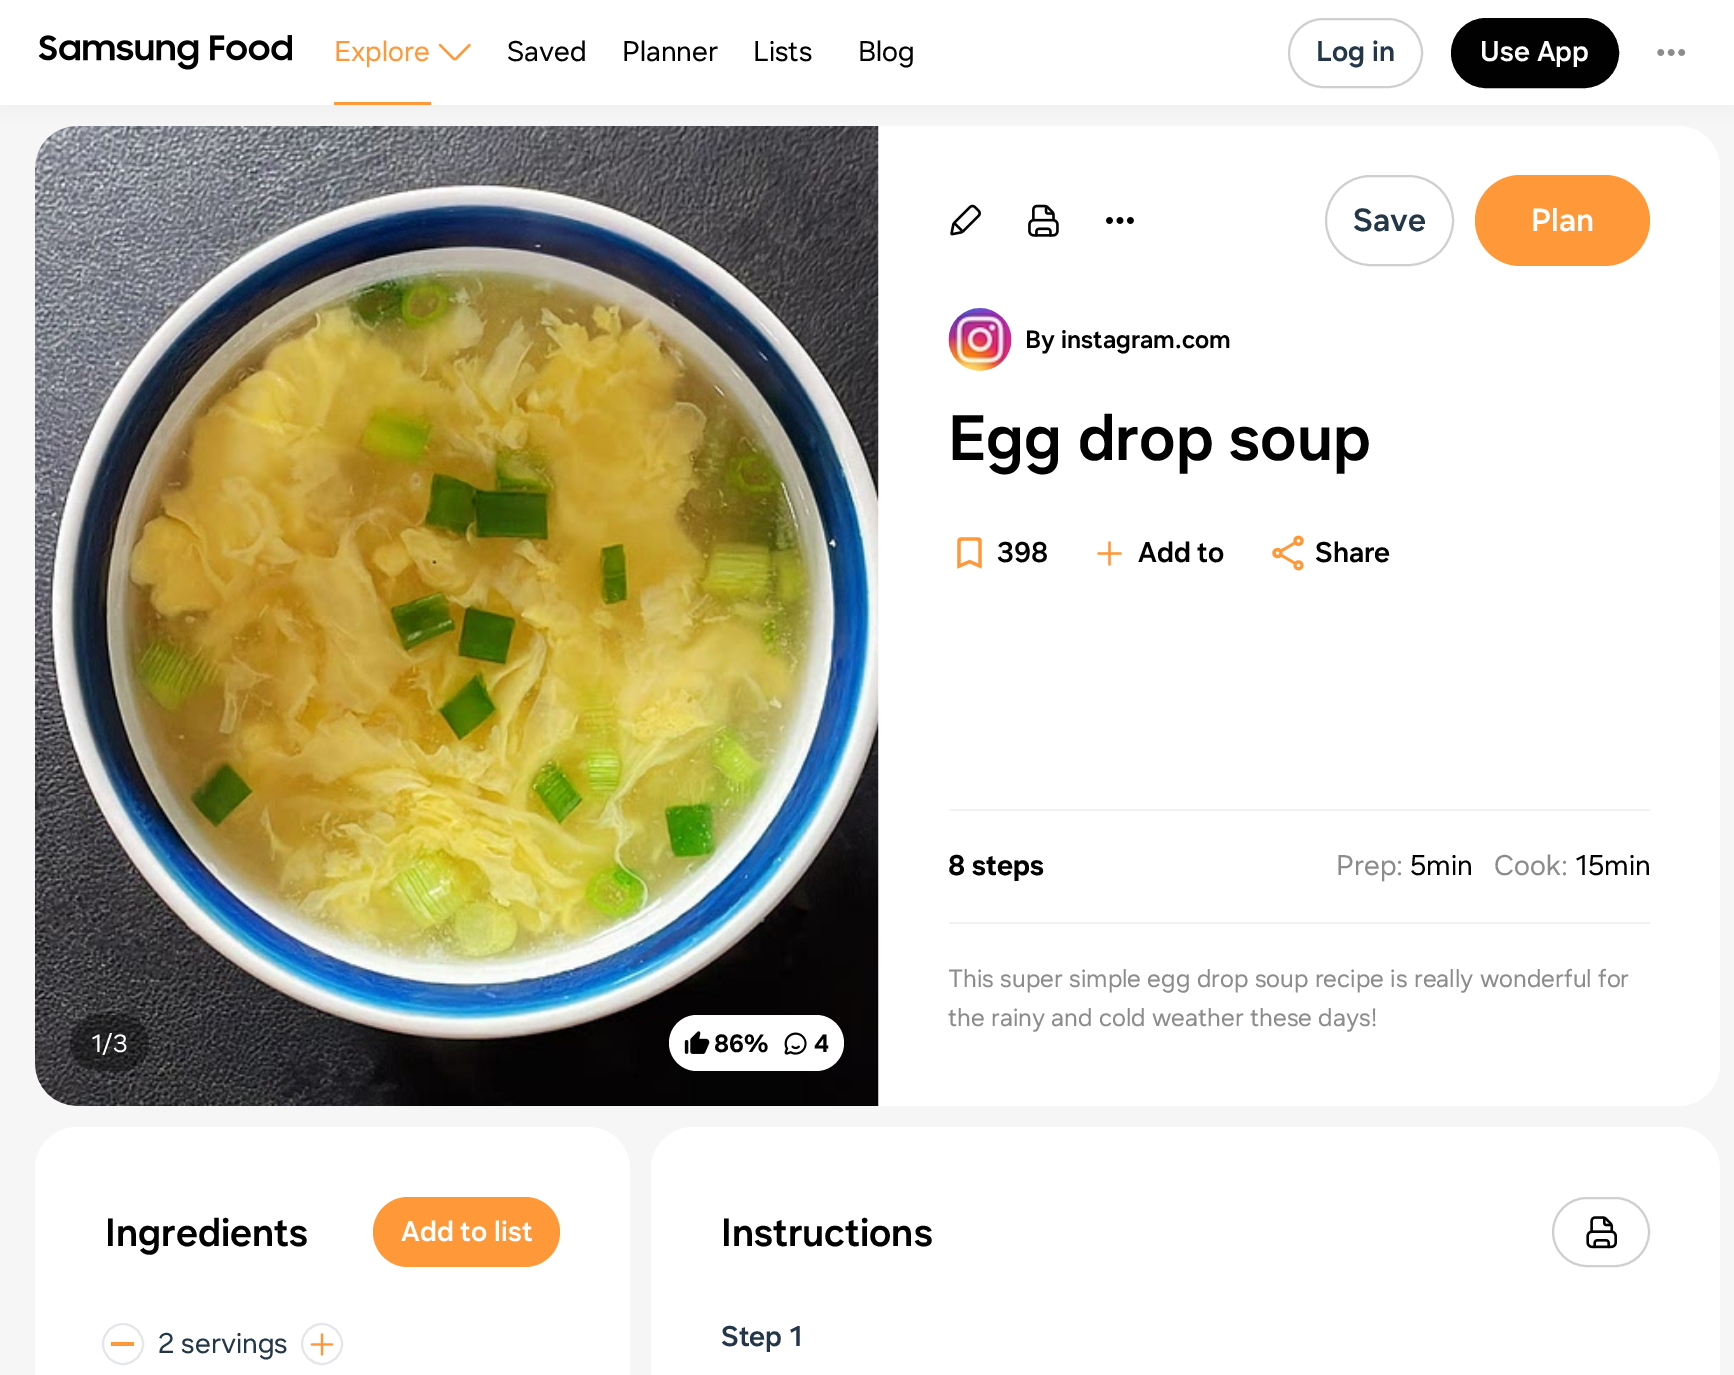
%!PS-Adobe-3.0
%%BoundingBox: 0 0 1734 1375
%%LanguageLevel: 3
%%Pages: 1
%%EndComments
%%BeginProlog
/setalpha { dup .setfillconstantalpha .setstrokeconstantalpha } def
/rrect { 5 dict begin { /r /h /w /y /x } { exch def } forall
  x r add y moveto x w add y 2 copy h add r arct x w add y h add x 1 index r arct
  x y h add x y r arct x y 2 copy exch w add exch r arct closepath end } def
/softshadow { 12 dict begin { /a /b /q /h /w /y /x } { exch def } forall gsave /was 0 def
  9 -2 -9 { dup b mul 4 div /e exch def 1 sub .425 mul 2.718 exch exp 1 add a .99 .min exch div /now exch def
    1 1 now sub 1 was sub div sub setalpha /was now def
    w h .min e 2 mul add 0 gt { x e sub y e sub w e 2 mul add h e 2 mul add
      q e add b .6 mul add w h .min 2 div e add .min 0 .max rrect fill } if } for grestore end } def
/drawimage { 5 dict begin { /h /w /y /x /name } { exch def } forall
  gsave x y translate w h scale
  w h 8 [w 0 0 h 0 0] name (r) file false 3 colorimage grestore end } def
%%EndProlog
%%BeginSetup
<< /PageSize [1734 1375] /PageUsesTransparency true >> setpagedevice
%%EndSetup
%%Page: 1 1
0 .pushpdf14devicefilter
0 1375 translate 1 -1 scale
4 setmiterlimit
0.965 setgray
0 0 1734 1375 rectfill
1 setgray
newpath 879 126 moveto 1678 126 lineto 1701 126 1720 145 1720 168 curveto 1720 1064 lineto 1720 1087 1701 1106 1678 1106 curveto 879 1106 lineto closepath fill
newpath 77 126 moveto 879 126 lineto 879 1106 lineto 77 1106 lineto 54 1106 35 1087 35 1064 curveto 35 168 lineto 35 145 54 126 77 126 curveto closepath fill
(images/11.raw) 35 126 844 980 drawimage
0.31 0.31 0.416 setrgbcolor
0 0 1734 105 0 10.5 0.06 softshadow
1 setgray
0 0 1734 105 rectfill
(images/1.raw) 39 35 253 35 drawimage
gsave
334 0 97 105 rectclip
1 0.596 0.22 setrgbcolor
newpath 161 -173 moveto 604 -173 lineto 604 278 lineto 161 278 lineto closepath 334 -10 moveto 430 -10 lineto 432 -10 434 -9 434 -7 curveto 434 98 lineto 434 100 432 102 430 102 curveto 334 102 lineto 332 102 331 100 331 98 curveto 331 -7 lineto 331 -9 332 -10 334 -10 curveto closepath eofill
grestore
(images/2.raw) 438 43 33 18 drawimage
0.812 setgray
2 setlinewidth
1289 19 133 68 34 rrect stroke
0.004 setgray
1452 19 166 68 34 rrect gsave fill grestore
stroke
(images/3.raw) 1657 49 29 7 drawimage
(images/4.raw) 950 204 31 32 drawimage
(images/5.raw) 1028 204 31 33 drawimage
(images/6.raw) 1106 217 28 7 drawimage
0.812 setgray
1326 176 127 89 44.5 rrect stroke
1 0.596 0.22 setrgbcolor
1475 175 175 91 45.5 rrect fill
(images/7.raw) 948 308 64 63 drawimage
(images/8.raw) 957 537 25 32 drawimage
(images/9.raw) 1097 541 25 25 drawimage
(images/10.raw) 1272 535 32 36 drawimage
0.949 setgray
949 809 701 2 rectfill
949 922 701 2 rectfill
0.4 setalpha
0.004 setgray
70 1015 79 56 28 rrect fill
1 setalpha
1 setgray
669 1015 175 56 28 rrect fill
(images/12.raw) 684 1031 26 23 drawimage
(images/13.raw) 784 1032 23 23 drawimage
newpath 77 1127 moveto 588 1127 lineto 611 1127 630 1146 630 1169 curveto 630 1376 lineto 35 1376 lineto 35 1169 lineto 35 1146 54 1127 77 1127 curveto closepath fill
1 0.596 0.22 setrgbcolor
373 1197 187 70 35 rrect fill
0.894 0.902 0.918 setrgbcolor
newpath 123 1344 20 0 360 arc closepath stroke
1 0.596 0.22 setrgbcolor
111 1342 23 4 rectfill
0.894 0.902 0.918 setrgbcolor
newpath 322 1344 20 0 360 arc closepath stroke
(images/14.raw) 310 1333 24 23 drawimage
1 setgray
newpath 693 1127 moveto 1678 1127 lineto 1701 1127 1720 1146 1720 1169 curveto 1720 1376 lineto 651 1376 lineto 651 1169 lineto 651 1146 670 1127 693 1127 curveto closepath fill
0.812 setgray
1553 1198 96 68 34 rrect stroke
(images/15.raw) 1586 1216 31 33 drawimage
/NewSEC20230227-Regular [28 0 0 -28 0 0] selectfont
1 0.596 0.22 setrgbcolor
334 61 moveto (Explore) show
0.004 setgray
507 61 moveto (Saved) show
622 61 moveto (Planner) show
753 61 moveto (Lists) show
858 61 moveto (Blog) show
/NewSEC20230227-SemiBold [28 0 0 -28 0 0] selectfont
0.137 0.216 0.282 setrgbcolor
1316 61 moveto (Log in) show
1 setgray
1480 61 moveto (Use App) show
/NewSEC20230227-SemiBold [31.5 0 0 -31.5 0 0] selectfont
0.137 0.216 0.282 setrgbcolor
1353 231 moveto (Save) show
1 setgray
1531 231 moveto (Plan) show
/NewSEC20230227-SemiBold [24.5 0 0 -24.5 0 0] selectfont
0.004 setgray
1025 348 moveto (By instagram.com) show
/NewSEC20230227-SemiBold [63 0 0 -63 0 0] selectfont
948 460 moveto (Egg drop soup) show
/NewSEC20230227-SemiBold [28 0 0 -28 0 0] selectfont
997 562 moveto (398) show
1138 562 moveto (Add to) show
1315 562 moveto (Share) show
/NewSEC20230227-Bold [28 0 0 -28 0 0] selectfont
948 875 moveto (8 steps) show
/NewSEC20230227-Regular [28 0 0 -28 0 0] selectfont
0.549 setgray
1336 875 moveto (Prep:) show
0.004 setgray
1410 875 moveto (5min) show
0.549 setgray
1494 875 moveto (Cook:) show
0.004 setgray
1575 875 moveto (15min) show
/NewSEC20230227-Regular [24.5 0 0 -24.5 0 0] selectfont
0.549 setgray
948 987 moveto (This super simple egg drop soup recipe is really wonderful for) show
948 1026 moveto (the rainy and cold weather these days!) show
1 setgray
91 1052 moveto (1/3) show
/NewSEC20230227-Bold [24.5 0 0 -24.5 0 0] selectfont
0.004 setgray
714 1052 moveto (86%) show
814 1052 moveto (4) show
/NewSEC20230227-SemiBold [38.5 0 0 -38.5 0 0] selectfont
105 1246 moveto (Ingredients) show
/NewSEC20230227-SemiBold [28 0 0 -28 0 0] selectfont
1 setgray
401 1241 moveto (Add to list) show
/NewSEC20230227-Regular [28 0 0 -28 0 0] selectfont
0.137 0.216 0.282 setrgbcolor
158 1353 moveto (2 servings) show
/NewSEC20230227-SemiBold [38.5 0 0 -38.5 0 0] selectfont
0.004 setgray
721 1246 moveto (Instructions) show
/NewSEC20230227-SemiBold [28 0 0 -28 0 0] selectfont
0.137 0.216 0.282 setrgbcolor
721 1346 moveto (Step 1) show
.poppdf14devicefilter showpage
%%EOF
